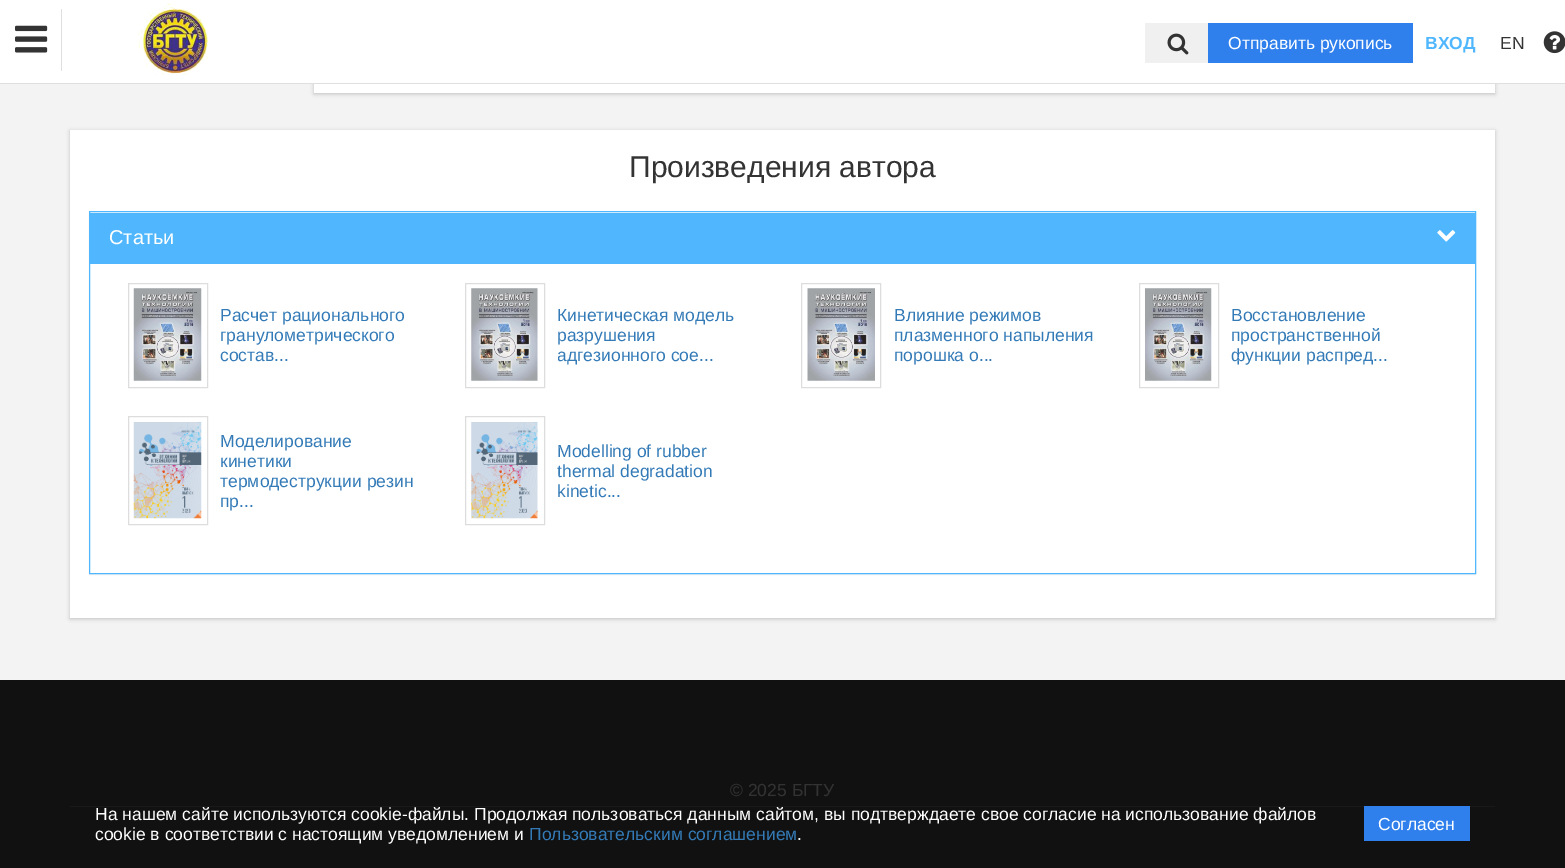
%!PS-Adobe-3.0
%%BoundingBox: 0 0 1565 868
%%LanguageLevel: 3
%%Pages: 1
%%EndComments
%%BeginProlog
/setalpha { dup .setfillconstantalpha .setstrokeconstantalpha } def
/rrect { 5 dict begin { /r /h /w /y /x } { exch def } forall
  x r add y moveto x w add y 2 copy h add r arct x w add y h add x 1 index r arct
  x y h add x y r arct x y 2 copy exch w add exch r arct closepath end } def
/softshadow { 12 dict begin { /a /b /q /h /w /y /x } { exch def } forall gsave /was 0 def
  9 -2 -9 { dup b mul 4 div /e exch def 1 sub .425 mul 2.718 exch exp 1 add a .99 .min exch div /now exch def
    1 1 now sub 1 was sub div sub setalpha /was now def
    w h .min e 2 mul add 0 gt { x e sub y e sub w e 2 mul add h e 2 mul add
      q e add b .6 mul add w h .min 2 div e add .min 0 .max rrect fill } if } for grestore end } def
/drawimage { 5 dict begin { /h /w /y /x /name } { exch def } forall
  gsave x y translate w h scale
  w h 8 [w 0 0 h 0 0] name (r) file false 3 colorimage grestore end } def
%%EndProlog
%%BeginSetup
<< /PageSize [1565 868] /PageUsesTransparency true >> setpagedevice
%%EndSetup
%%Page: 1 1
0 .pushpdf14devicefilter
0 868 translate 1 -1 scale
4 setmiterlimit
0.957 0.953 0.953 setrgbcolor
0 0 1565 868 rectfill
0.749 setgray
314 -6 1181 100 0 2 1 softshadow
1 setgray
0 0 1565 83 rectfill
0.875 setgray
0 83 1565 1 rectfill
61 9 1 62 rectfill
(images/1.raw) 15 25 33 28 drawimage
(images/2.raw) 137 3 71 72 drawimage
0.941 setgray
1145 23 63 40 rectfill
(images/3.raw) 1167 33 22 22 drawimage
0.184 0.502 0.929 setrgbcolor
1208 23 205 40 rectfill
(images/4.raw) 1543 31 22 23 drawimage
1 setgray
314 84 1181 9 rectfill
0.749 setgray
70 131 1425 488 0 2 1 softshadow
1 setgray
70 130 1425 488 rectfill
0 setgray
89 213 1387 362 0 0.5 0.05 softshadow
1 setgray
90 213 1385 360 rectfill
0.314 0.718 1 setrgbcolor
89.5 211.5 1386 362 rectstroke
90 213 1385 51 rectfill
(images/5.raw) 1437 230 19 12 drawimage
0.867 setgray
128.5 283.5 79 104 rectstroke
(images/6.raw) 133 288 69 93 drawimage
465.5 283.5 79 104 rectstroke
(images/7.raw) 471 288 67 93 drawimage
801.5 283.5 79 104 rectstroke
(images/8.raw) 807 288 68 93 drawimage
1139.5 283.5 79 104 rectstroke
(images/9.raw) 1145 288 67 93 drawimage
128.5 416.5 79 108 rectstroke
(images/10.raw) 133 422 69 97 drawimage
465.5 416.5 79 108 rectstroke
(images/11.raw) 471 422 67 97 drawimage
0.067 setgray
0 680 1565 188 rectfill
0.098 setgray
70 806 1425 1 rectfill
0.184 0.502 0.929 setrgbcolor
1364 806 106 35 rectfill
/LiberationSans-Regular [17.5 0 0 -17.5 0 0] selectfont
1 setgray
1228 49 moveto (Отправить рукопись) show
/LiberationSans-Bold [17.5 0 0 -17.5 0 0] selectfont
0.314 0.718 1 setrgbcolor
1425 49 moveto (ВХОД) show
/LiberationSans-Regular [17.5 0 0 -17.5 0 0] selectfont
0.2 setgray
1500 49 moveto (EN) show
/LiberationSans-Regular [30 0 0 -30 0 0] selectfont
629 177 moveto (Произведения автора) show
/LiberationSans-Regular [20 0 0 -20 0 0] selectfont
1 setgray
109 244 moveto (Статьи) show
/LiberationSans-Regular [17.5 0 0 -17.5 0 0] selectfont
0.2 0.478 0.718 setrgbcolor
220 321 moveto (Расчет рационального) show
220 341 moveto (гранулометрического) show
220 361 moveto (состав...) show
557 321 moveto (Кинетическая модель) show
557 341 moveto (разрушения) show
gsave
558 283 206 105 rectclip
557 361 moveto (адгезионного сое...) show
grestore
894 321 moveto (Влияние режимов) show
894 341 moveto (плазменного напыления) show
894 361 moveto (порошка о...) show
1231 321 moveto (Восстановление) show
1231 341 moveto (пространственной) show
1231 361 moveto (функции распред...) show
220 447 moveto (Моделирование) show
220 467 moveto (кинетики) show
220 487 moveto (термодеструкции резин) show
220 507 moveto (пр...) show
557 457 moveto (Modelling of rubber) show
557 477 moveto (thermal degradation) show
557 497 moveto (kinetic...) show
0.2 setgray
730 796 moveto (© 2025 БГТУ) show
1 setgray
95 820 moveto (На нашем сайте используются cookie-файлы. Продолжая пользоваться данным сайтом, вы подтверждаете свое согласие на использование файлов) show
95 840 moveto (cookie в соответствии с настоящим уведомлением и) show
0.2 0.478 0.718 setrgbcolor
529 840 moveto (Пользовательским соглашением) show
1 setgray
797 840 moveto (.) show
1378 830 moveto (Согласен) show
.poppdf14devicefilter showpage
%%EOF
